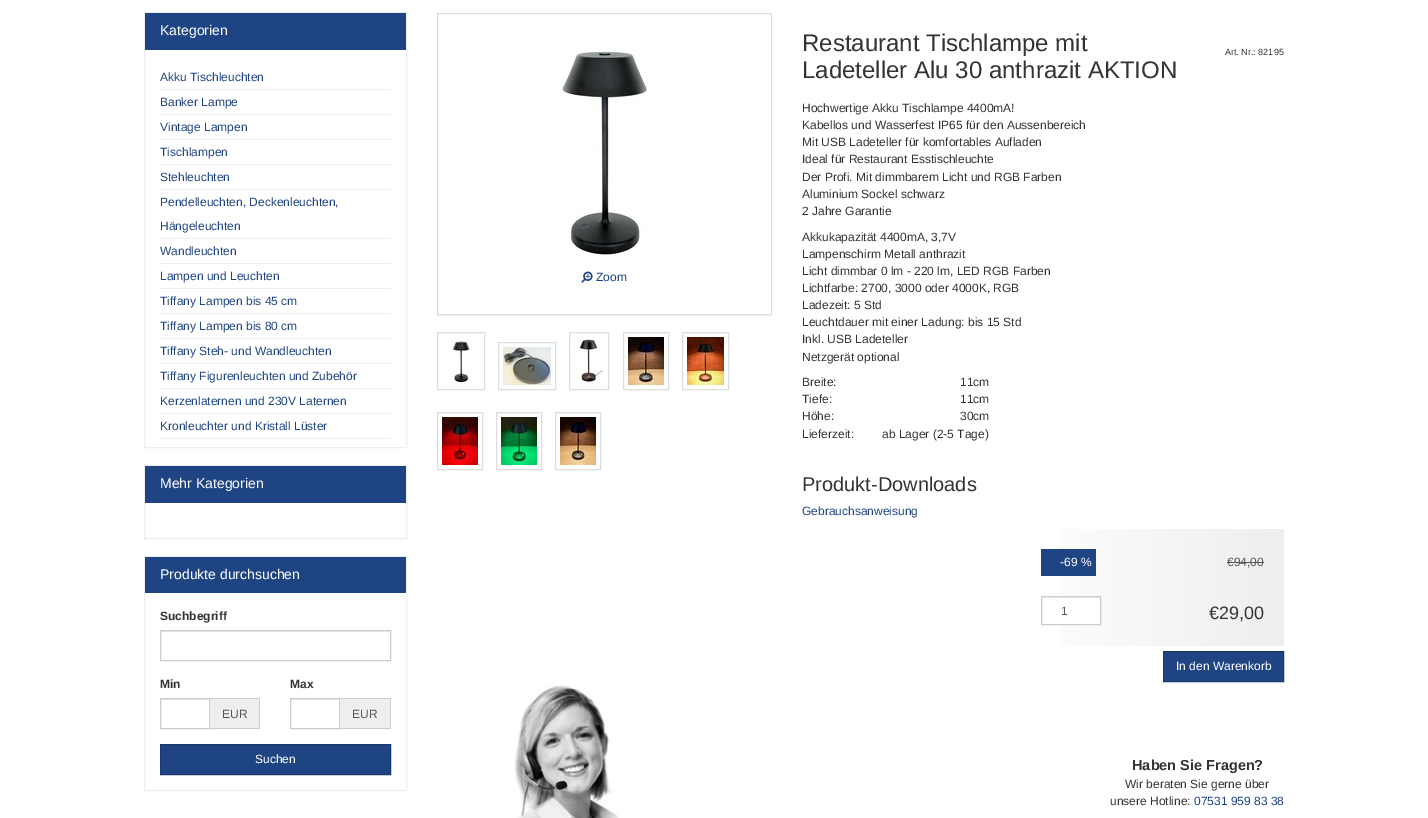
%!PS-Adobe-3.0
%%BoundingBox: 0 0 1428 818
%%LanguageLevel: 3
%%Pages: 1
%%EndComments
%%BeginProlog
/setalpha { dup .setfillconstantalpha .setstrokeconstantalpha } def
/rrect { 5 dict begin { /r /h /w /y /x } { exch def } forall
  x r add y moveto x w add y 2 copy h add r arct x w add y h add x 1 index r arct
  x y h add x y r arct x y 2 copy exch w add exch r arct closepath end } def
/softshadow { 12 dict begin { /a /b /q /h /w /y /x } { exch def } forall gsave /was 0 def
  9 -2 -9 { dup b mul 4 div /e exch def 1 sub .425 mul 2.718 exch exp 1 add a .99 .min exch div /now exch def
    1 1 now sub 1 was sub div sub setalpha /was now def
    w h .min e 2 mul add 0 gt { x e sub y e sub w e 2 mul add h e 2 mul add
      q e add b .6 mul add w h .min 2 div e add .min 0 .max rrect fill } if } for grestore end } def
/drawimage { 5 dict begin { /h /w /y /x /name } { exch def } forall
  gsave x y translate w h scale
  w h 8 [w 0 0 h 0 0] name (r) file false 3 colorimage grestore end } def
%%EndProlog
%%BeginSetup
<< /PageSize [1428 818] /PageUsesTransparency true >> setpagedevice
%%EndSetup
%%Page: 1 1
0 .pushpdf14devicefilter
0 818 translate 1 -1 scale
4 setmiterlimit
1 setgray
0 0 1428 818 rectfill
0.933 setgray
144.5 12.5 262 435 rectstroke
0.122 0.267 0.514 setrgbcolor
145 13 261 37 rectfill
0.933 setgray
160 89 231 1 rectfill
160 114 231 1 rectfill
160 139 231 1 rectfill
160 164 231 1 rectfill
160 189 231 1 rectfill
160 238 231 1 rectfill
160 263 231 1 rectfill
160 288 231 1 rectfill
160 313 231 1 rectfill
160 338 231 1 rectfill
160 363 231 1 rectfill
160 388 231 1 rectfill
160 413 231 1 rectfill
160 438 231 1 rectfill
144.5 465.5 262 73 rectstroke
0.122 0.267 0.514 setrgbcolor
145 466 261 37 rectfill
0.933 setgray
144.5 556.5 262 234 rectstroke
0.122 0.267 0.514 setrgbcolor
145 557 261 36 rectfill
0.925 setgray
161 631 229 1 rectfill
0.8 setgray
160.5 630.5 230 30 rectstroke
0.925 setgray
161 699 48 1 rectfill
0.8 setgray
160.5 698.5 49 30 rectstroke
0.933 setgray
210 699 49 29 rectfill
0.8 setgray
210 698 50 1 rectfill
259 698 1 31 rectfill
210 728 50 1 rectfill
0.925 setgray
291 699 48 1 rectfill
0.8 setgray
290.5 698.5 49 30 rectstroke
0.933 setgray
340 699 50 29 rectfill
0.8 setgray
340 698 51 1 rectfill
390 698 1 31 rectfill
340 728 51 1 rectfill
0.122 0.267 0.514 setrgbcolor
161 746 229 28 rectfill
0.114 0.247 0.475 setrgbcolor
161 745 229 1 rectfill
0.102 0.224 0.431 setrgbcolor
160.5 744.5 230 30 rectstroke
gsave
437 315 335 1 rectclip
0 setgray
437 14 335 302 0 0.5 0.05 softshadow
grestore
0.867 setgray
437.5 13.5 334 301 rectstroke
(images/1.raw) 561 51 90 206 drawimage
(images/2.raw) 581 271 12 12 drawimage
437.5 332.5 47 57 rectstroke
(images/3.raw) 450 337 24 48 drawimage
498.5 342.5 57 47 rectstroke
(images/4.raw) 503 347 48 38 drawimage
569.5 332.5 39 57 rectstroke
(images/5.raw) 574 337 30 48 drawimage
623.5 332.5 45 57 rectstroke
(images/6.raw) 628 337 36 48 drawimage
682.5 332.5 46 57 rectstroke
(images/7.raw) 687 337 37 48 drawimage
437.5 412.5 45 57 rectstroke
(images/8.raw) 442 417 36 48 drawimage
496.5 412.5 45 57 rectstroke
(images/9.raw) 501 417 36 48 drawimage
555.5 412.5 45 57 rectstroke
(images/10.raw) 560 417 36 48 drawimage
gsave newpath 1060 529 moveto 1284 529 lineto 1284 646 lineto 1060 646 lineto closepath clip newpath
<< /ShadingType 2 /ColorSpace /DeviceRGB /Coords [1021 588 1284 588] /Extend [true true] /Function << /FunctionType 2 /Domain [0 1] /C0 [1 1 1] /C1 [0.933 0.933 0.933] /N 1 >> >> shfill grestore
0.122 0.267 0.514 setrgbcolor
1041 549 55 27 rectfill
0.333 setgray
1227 562 37 1 rectfill
1 setgray
1060 598 40 26 rectfill
0.925 setgray
1042 597 58 1 rectfill
0.8 setgray
1041.5 596.5 59 28 rectstroke
0.122 0.267 0.514 setrgbcolor
1164 653 119 28 rectfill
0.114 0.247 0.475 setrgbcolor
1164 652 119 1 rectfill
0.102 0.224 0.431 setrgbcolor
1163.5 651.5 120 30 rectstroke
(images/11.raw) 514 685 105 133 drawimage
/LiberationSans-Regular [14 0 0 -14 0 0] selectfont
1 setgray
160 35 moveto (Kategorien) show
/LiberationSans-Regular [12 0 0 -12 0 0] selectfont
0.122 0.267 0.514 setrgbcolor
160 81 moveto (Akku Tischleuchten) show
160 106 moveto (Banker Lampe) show
160 131 moveto (Vintage Lampen) show
160 156 moveto (Tischlampen) show
160 181 moveto (Stehleuchten) show
160 206 moveto (Pendelleuchten, Deckenleuchten,) show
160 230 moveto (Hängeleuchten) show
160 255 moveto (Wandleuchten) show
160 280 moveto (Lampen und Leuchten) show
160 305 moveto (Tiffany Lampen bis 45 cm) show
160 330 moveto (Tiffany Lampen bis 80 cm) show
160 355 moveto (Tiffany Steh- und Wandleuchten) show
160 380 moveto (Tiffany Figurenleuchten und Zubehör) show
160 405 moveto (Kerzenlaternen und 230V Laternen) show
160 430 moveto (Kronleuchter und Kristall Lüster) show
/LiberationSans-Regular [14 0 0 -14 0 0] selectfont
1 setgray
160 488 moveto (Mehr Kategorien) show
160 579 moveto (Produkte durchsuchen) show
/LiberationSans-Bold [12 0 0 -12 0 0] selectfont
0.2 setgray
160 620 moveto (Suchbegriff) show
160 688 moveto (Min) show
/LiberationSans-Regular [12 0 0 -12 0 0] selectfont
0.333 setgray
222 718 moveto (EUR) show
/LiberationSans-Bold [12 0 0 -12 0 0] selectfont
0.2 setgray
290 688 moveto (Max) show
/LiberationSans-Regular [12 0 0 -12 0 0] selectfont
0.333 setgray
352 718 moveto (EUR) show
1 setgray
255 763 moveto (Suchen) show
0.122 0.267 0.514 setrgbcolor
596 281 moveto (Zoom) show
/LiberationSans-Regular [24 0 0 -24 0 0] selectfont
0.2 setgray
802 51 moveto (Restaurant Tischlampe mit) show
802 78 moveto (Ladeteller Alu 30 anthrazit AKTION) show
/LiberationSans-Regular [9 0 0 -9 0 0] selectfont
1225 55 moveto (Art. Nr.: 82195) show
/LiberationSans-Regular [12 0 0 -12 0 0] selectfont
802 112 moveto (Hochwertige Akku Tischlampe 4400mA!) show
802 129 moveto (Kabellos und Wasserfest IP65 für den Aussenbereich) show
802 146 moveto (Mit USB Ladeteller für komfortables Aufladen) show
802 163 moveto (Ideal für Restaurant Esstischleuchte) show
802 181 moveto (Der Profi. Mit dimmbarem Licht und RGB Farben) show
802 198 moveto (Aluminium Sockel schwarz) show
802 215 moveto (2 Jahre Garantie) show
802 241 moveto (Akkukapazität 4400mA, 3,7V) show
802 258 moveto (Lampenschirm Metall anthrazit) show
802 275 moveto (Licht dimmbar 0 lm - 220 lm, LED RGB Farben) show
802 292 moveto (Lichtfarbe: 2700, 3000 oder 4000K, RGB) show
802 309 moveto (Ladezeit: 5 Std) show
802 326 moveto (Leuchtdauer mit einer Ladung: bis 15 Std) show
802 343 moveto (Inkl. USB Ladeteller) show
802 361 moveto (Netzgerät optional) show
802 386 moveto (Breite:) show
960 386 moveto (11cm) show
802 403 moveto (Tiefe:) show
960 403 moveto (11cm) show
802 420 moveto (Höhe:) show
960 420 moveto (30cm) show
802 438 moveto (Lieferzeit:) show
882 438 moveto (ab Lager \(2-5 Tage\)) show
/LiberationSans-Regular [20 0 0 -20 0 0] selectfont
802 491 moveto (Produkt-Downloads) show
/LiberationSans-Regular [12 0 0 -12 0 0] selectfont
0.122 0.267 0.514 setrgbcolor
802 515 moveto (Gebrauchsanweisung) show
1 setgray
1060 566 moveto (-69 %) show
0.333 setgray
1227 566 moveto (€94,00) show
1061 615 moveto (1) show
/LiberationSans-Regular [18 0 0 -18 0 0] selectfont
0.2 setgray
1209 619 moveto (€29,00) show
/LiberationSans-Regular [12 0 0 -12 0 0] selectfont
1 setgray
1176 670 moveto (In den Warenkorb) show
/LiberationSans-Bold [14.5 0 0 -14.5 0 0] selectfont
0.2 setgray
1132 770 moveto (Haben Sie Fragen?) show
/LiberationSans-Regular [12 0 0 -12 0 0] selectfont
1125 788 moveto (Wir beraten Sie gerne über) show
1110 805 moveto (unsere Hotline:) show
0.122 0.267 0.514 setrgbcolor
1194 805 moveto (07531 959 83 38) show
.poppdf14devicefilter showpage
%%EOF
